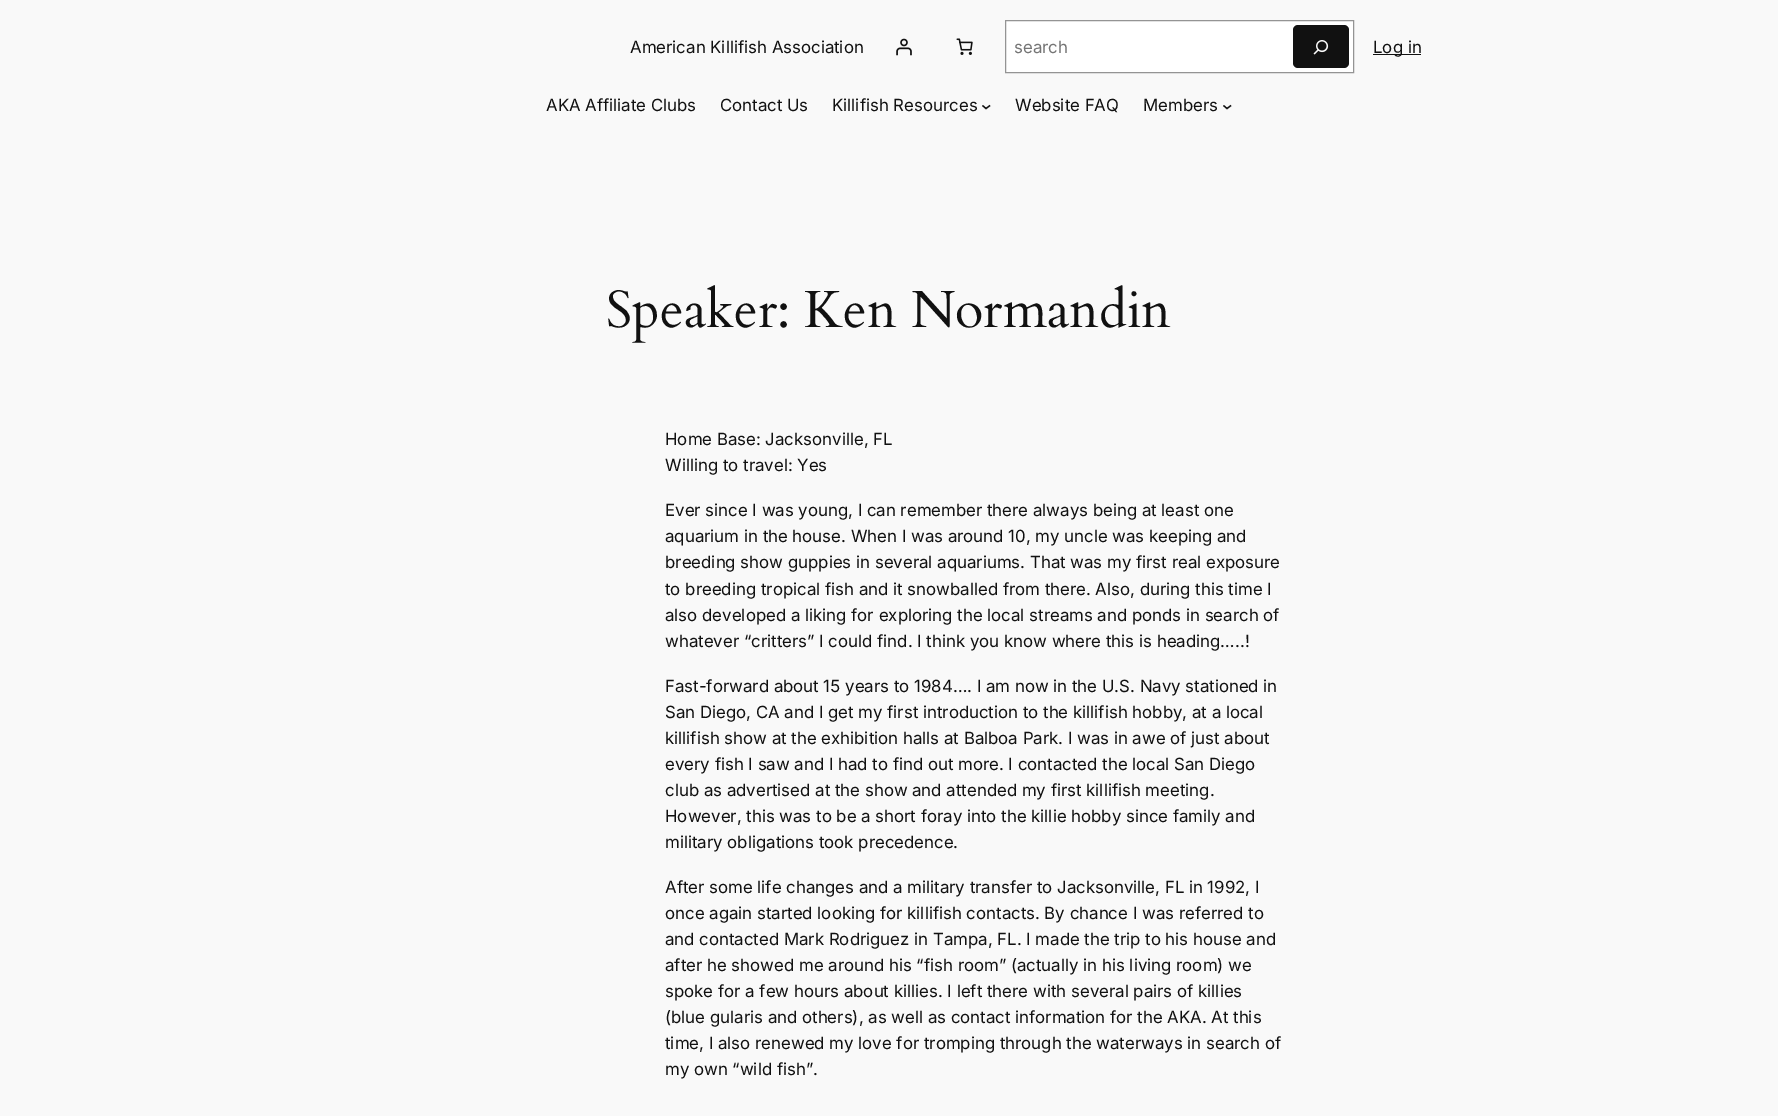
%!PS-Adobe-3.0
%%BoundingBox: 0 0 1778 1116
%%LanguageLevel: 3
%%Pages: 1
%%EndComments
%%BeginProlog
/rrect { 5 dict begin { /r /h /w /y /x } { exch def } forall
  x r add y moveto x w add y 2 copy h add r arct x w add y h add x 1 index r arct
  x y h add x y r arct x y 2 copy exch w add exch r arct closepath end } def
/drawimage { 5 dict begin { /h /w /y /x /name } { exch def } forall
  gsave x y translate w h scale
  w h 8 [w 0 0 h 0 0] name (r) file false 3 colorimage grestore end } def
%%EndProlog
%%BeginSetup
<< /PageSize [1778 1116] >> setpagedevice
%%EndSetup
%%Page: 1 1
0 1116 translate 1 -1 scale
4 setmiterlimit
0.976 setgray
0 0 1778 1116 rectfill
(images/1.raw) 896 38 16 18 drawimage
(images/2.raw) 956 38 17 17 drawimage
1 setgray
newpath 1005.5 20.5 moveto 1353.5 20.5 lineto 1353.5 72.5 lineto 1005.5 72.5 lineto closepath gsave fill grestore
0.58 setgray
stroke
0.067 setgray
1293 25 56 43 5 rrect fill
(images/3.raw) 1313 40 16 15 drawimage
1373 54 48 1 rectfill
1.3 setlinewidth
newpath 982.5 105.5 moveto 986 108.5 lineto 990 105.5 lineto stroke
newpath 1223.5 105.5 moveto 1227 108.5 lineto 1231 105.5 lineto stroke
/Inter-Regular [16.8 0 0 -16.8 0 0] selectfont
630 53 moveto (American Killifish Association) show
0.459 setgray
1014 53 moveto (search) show
0.067 setgray
1373 53 moveto (Log in) show
546 111 moveto (AKA Affiliate Clubs) show
720 111 moveto (Contact Us) show
832 111 moveto (Killifish Resources) show
1015 111 moveto (Website FAQ) show
1143 111 moveto (Members) show
/Cardo-Regular [52.25 0 0 -52.25 0 0] selectfont
606 327 moveto (Speaker: Ken Normandin) show
/Inter-Regular [16.8 0 0 -16.8 0 0] selectfont
665 445 moveto (Home Base: Jacksonville, FL) show
665 471 moveto (Willing to travel: Yes) show
665 516 moveto (Ever since I was young, I can remember there always being at least one) show
665 542 moveto (aquarium in the house. When I was around 10, my uncle was keeping and) show
665 568 moveto (breeding show guppies in several aquariums. That was my first real exposure) show
665 595 moveto (to breeding tropical fish and it snowballed from there. Also, during this time I) show
665 621 moveto (also developed a liking for exploring the local streams and ponds in search of) show
665 647 moveto (whatever “critters” I could find. I think you know where this is heading…..!) show
665 692 moveto (Fast-forward about 15 years to 1984…. I am now in the U.S. Navy stationed in) show
665 718 moveto (San Diego, CA and I get my first introduction to the killifish hobby, at a local) show
665 744 moveto (killifish show at the exhibition halls at Balboa Park. I was in awe of just about) show
665 770 moveto (every fish I saw and I had to find out more. I contacted the local San Diego) show
665 796 moveto (club as advertised at the show and attended my first killifish meeting.) show
665 822 moveto (However, this was to be a short foray into the killie hobby since family and) show
665 848 moveto (military obligations took precedence.) show
665 893 moveto (After some life changes and a military transfer to Jacksonville, FL in 1992, I) show
665 919 moveto (once again started looking for killifish contacts. By chance I was referred to) show
665 945 moveto (and contacted Mark Rodriguez in Tampa, FL. I made the trip to his house and) show
665 971 moveto (after he showed me around his “fish room” \(actually in his living room\) we) show
665 997 moveto (spoke for a few hours about killies. I left there with several pairs of killies) show
665 1023 moveto (\(blue gularis and others\), as well as contact information for the AKA. At this) show
665 1049 moveto (time, I also renewed my love for tromping through the waterways in search of) show
665 1075 moveto (my own “wild fish”.) show
showpage
%%EOF
